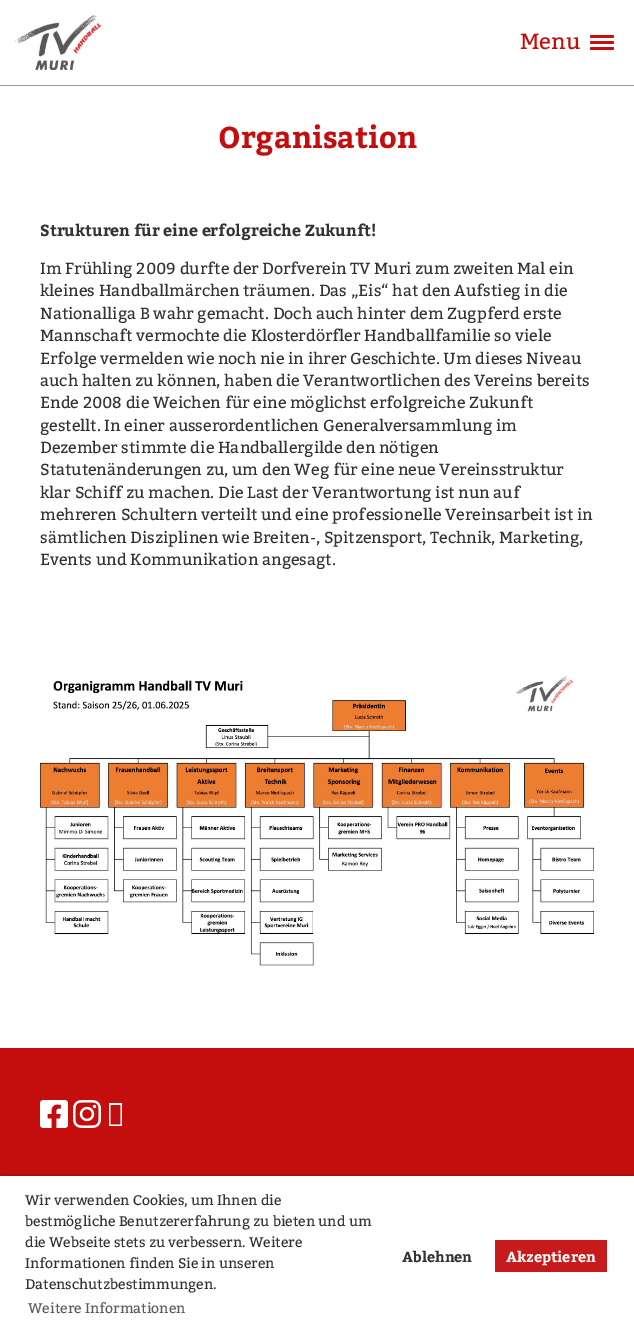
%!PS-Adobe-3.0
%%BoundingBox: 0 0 634 1336
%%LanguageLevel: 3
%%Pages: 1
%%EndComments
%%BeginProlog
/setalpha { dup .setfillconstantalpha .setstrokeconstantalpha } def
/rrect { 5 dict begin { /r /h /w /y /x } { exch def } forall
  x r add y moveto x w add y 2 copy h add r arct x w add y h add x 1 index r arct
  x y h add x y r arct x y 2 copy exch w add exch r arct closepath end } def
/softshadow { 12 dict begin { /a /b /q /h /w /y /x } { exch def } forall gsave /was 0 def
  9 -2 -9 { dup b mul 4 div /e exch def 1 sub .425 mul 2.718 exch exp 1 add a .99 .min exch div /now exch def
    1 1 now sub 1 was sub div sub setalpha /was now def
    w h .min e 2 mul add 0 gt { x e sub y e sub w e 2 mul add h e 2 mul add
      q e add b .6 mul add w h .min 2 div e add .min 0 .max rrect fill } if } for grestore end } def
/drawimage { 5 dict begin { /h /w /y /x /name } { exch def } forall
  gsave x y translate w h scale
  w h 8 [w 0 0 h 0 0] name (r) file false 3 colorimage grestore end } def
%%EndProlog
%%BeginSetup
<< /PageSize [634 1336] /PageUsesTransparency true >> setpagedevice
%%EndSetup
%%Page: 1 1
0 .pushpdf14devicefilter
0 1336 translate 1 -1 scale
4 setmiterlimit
1 setgray
0 0 634 1336 rectfill
0.6 setgray
0 85 634 1 rectfill
(images/1.raw) 15 15 86 55 drawimage
0.769 0.055 0.055 setrgbcolor
590 35 24 3 1.5 rrect fill
590 41 24 3 1.5 rrect fill
590 47 24 3 1.5 rrect fill
(images/2.raw) 40 675 554 291 drawimage
0 1048 634 128 rectfill
(images/3.raw) 40 1100 28 28 drawimage
(images/4.raw) 73 1100 28 28 drawimage
1 setgray
newpath 109 1126 moveto 109 1103 lineto 122 1103 lineto 122 1126 lineto closepath 110.5 1124.5 moveto 120.5 1124.5 lineto 120.5 1105 lineto 110.5 1105 lineto closepath fill
0 setgray
0 1176 634 160 0 2.5 0.3 softshadow
1 setgray
0 1176 634 160 rectfill
0.78 0.102 0.102 setrgbcolor
495 1240 112 32 rectfill
/Bitter-Regular [22 0 0 -22 0 0] selectfont
0.769 0.055 0.055 setrgbcolor
520 49 moveto (Menu) show
/Bitter-Bold [30 0 0 -30 0 0] selectfont
218 148 moveto (Organisation) show
/Bitter-Bold [16 0 0 -16 0 0] selectfont
0.2 setgray
40 236 moveto (Strukturen für eine erfolgreiche Zukunft!) show
/Bitter-Regular [16 0 0 -16 0 0] selectfont
40 274 moveto (Im Frühling 2009 durfte der Dorfverein TV Muri zum zweiten Mal ein) show
40 296 moveto (kleines Handballmärchen träumen. Das „Eis“ hat den Aufstieg in die) show
40 319 moveto (Nationalliga B wahr gemacht. Doch auch hinter dem Zugpferd erste) show
40 341 moveto (Mannschaft vermochte die Klosterdörfler Handballfamilie so viele) show
40 364 moveto (Erfolge vermelden wie noch nie in ihrer Geschichte. Um dieses Niveau) show
40 386 moveto (auch halten zu können, haben die Verantwortlichen des Vereins bereits) show
40 408 moveto (Ende 2008 die Weichen für eine möglichst erfolgreiche Zukunft) show
40 431 moveto (gestellt. In einer ausserordentlichen Generalversammlung im) show
40 453 moveto (Dezember stimmte die Handballergilde den nötigen) show
40 475 moveto (Statutenänderungen zu, um den Weg für eine neue Vereinsstruktur) show
40 498 moveto (klar Schiff zu machen. Die Last der Verantwortung ist nun auf) show
40 520 moveto (mehreren Schultern verteilt und eine professionelle Vereinsarbeit ist in) show
40 543 moveto (sämtlichen Disziplinen wie Breiten-, Spitzensport, Technik, Marketing,) show
40 565 moveto (Events und Kommunikation angesagt.) show
/Bitter-Regular [14 0 0 -14 0 0] selectfont
25 1205 moveto (Wir verwenden Cookies, um Ihnen die) show
25 1226 moveto (bestmögliche Benutzererfahrung zu bieten und um) show
25 1247 moveto (die Webseite stets zu verbessern. Weitere) show
25 1268 moveto (Informationen finden Sie in unseren) show
25 1289 moveto (Datenschutzbestimmungen.) show
0.361 setgray
28 1313 moveto (Weitere Informationen) show
/Bitter-Bold [14.5 0 0 -14.5 0 0] selectfont
0.2 setgray
402 1262 moveto (Ablehnen) show
1 setgray
506 1262 moveto (Akzeptieren) show
.poppdf14devicefilter showpage
%%EOF
